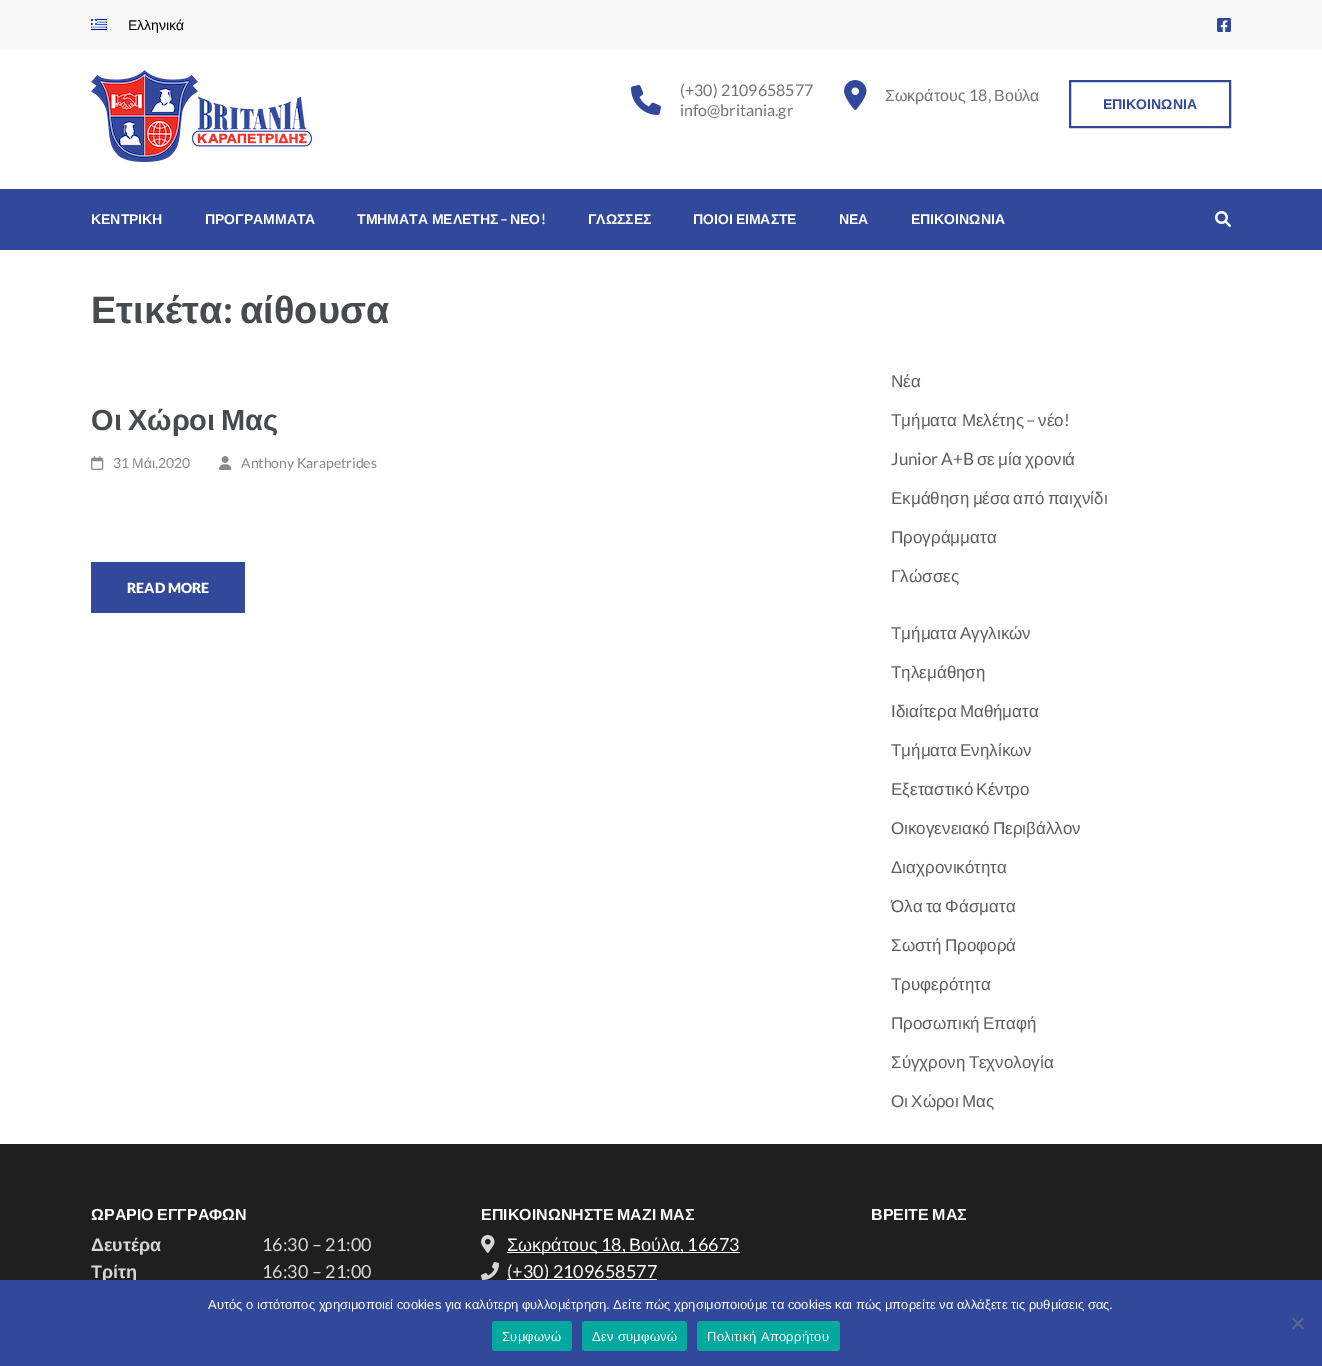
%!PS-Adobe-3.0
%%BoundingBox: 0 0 1322 1366
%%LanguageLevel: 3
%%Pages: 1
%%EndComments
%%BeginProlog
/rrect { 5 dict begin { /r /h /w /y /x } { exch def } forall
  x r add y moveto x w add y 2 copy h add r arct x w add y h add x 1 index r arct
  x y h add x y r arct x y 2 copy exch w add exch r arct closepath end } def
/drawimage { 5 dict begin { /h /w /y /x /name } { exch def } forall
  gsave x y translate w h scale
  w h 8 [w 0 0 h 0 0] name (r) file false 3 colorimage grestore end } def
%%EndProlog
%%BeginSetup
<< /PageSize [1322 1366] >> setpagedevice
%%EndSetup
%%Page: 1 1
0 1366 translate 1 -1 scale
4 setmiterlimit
1 setgray
0 0 1322 1366 rectfill
0.973 setgray
0 0 1322 50 rectfill
(images/1.raw) 91 19 16 11 drawimage
0.984 setgray
111 17 1 16 rectfill
(images/2.raw) 1217 18 14 14 drawimage
(images/3.raw) 91 70 221 92 drawimage
(images/4.raw) 631 85 30 30 drawimage
(images/5.raw) 844 80 23 30 drawimage
0.192 0.282 0.608 setrgbcolor
2 setlinewidth
1070 81 160 46 rectstroke
0 189 1322 61 rectfill
(images/6.raw) 1215 211 16 16 drawimage
(images/7.raw) 91 456 13 14 drawimage
(images/8.raw) 219 456 13 14 drawimage
91 562 154 51 rectfill
0.122 setgray
0 1144 1322 136 rectfill
(images/9.raw) 481 1235 14 18 drawimage
1 setgray
507 1252 233 1 rectfill
(images/10.raw) 481 1262 18 18 drawimage
507 1279 150 1 rectfill
/LiberationSans-Regular [14 0 0 -14 0 0] selectfont
0 setgray
128 30 moveto (Ελληνικά) show
/Lato-Regular [16 0 0 -16 0 0] selectfont
0.455 setgray
680 96 moveto (\(+30\) 2109658577) show
680 116 moveto (info@britania.gr) show
/LiberationSans-Regular [16 0 0 -16 0 0] selectfont
885 101 moveto (Σωκράτους) show
/Lato-Regular [16 0 0 -16 0 0] selectfont
969 101 moveto (18,) show
/LiberationSans-Regular [16 0 0 -16 0 0] selectfont
994 101 moveto (Βούλα) show
/LiberationSans-Bold [14 0 0 -14 0 0] selectfont
0.192 0.282 0.608 setrgbcolor
1103 109 moveto (ΕΠΙΚΟΙΝΩΝΙΑ) show
1 setgray
91 224 moveto (ΚΕΝΤΡΙΚΗ) show
205 224 moveto (ΠΡΟΓΡΑΜΜΑΤΑ) show
357 224 moveto (ΤΜΗΜΑΤΑ ΜΕΛΕΤΗΣ) show
/Lato-Bold [14 0 0 -14 0 0] selectfont
500 224 moveto (–) show
/LiberationSans-Bold [14 0 0 -14 0 0] selectfont
510 224 moveto (ΝΕΟ) show
/Lato-Bold [14 0 0 -14 0 0] selectfont
541 224 moveto (!) show
/LiberationSans-Bold [14 0 0 -14 0 0] selectfont
588 224 moveto (ΓΛΩΣΣΕΣ) show
693 224 moveto -1 0 32 (ΠΟΙΟΙ ΕΙΜΑΣΤΕ) widthshow
839 224 moveto (ΝΕΑ) show
911 224 moveto (ΕΠΙΚΟΙΝΩΝΙΑ) show
/LiberationSans-Bold [38 0 0 -38 0 0] selectfont
0.278 0.294 0.306 setrgbcolor
91 323 moveto (Ετικέτα) show
/Lato-Bold [38 0 0 -38 0 0] selectfont
223 323 moveto (:) show
/LiberationSans-Bold [38 0 0 -38 0 0] selectfont
240 323 moveto (αίθουσα) show
/LiberationSans-Bold [29 0 0 -29 0 0] selectfont
91 430 moveto -2 0 32 (Οι Χώροι Μας) widthshow
/Lato-Regular [14 0 0 -14 0 0] selectfont
0.529 0.545 0.553 setrgbcolor
113 468 moveto (31) show
/LiberationSans-Regular [14 0 0 -14 0 0] selectfont
132 468 moveto (Μάι) show
/Lato-Regular [14 0 0 -14 0 0] selectfont
155 468 moveto (,2020) show
241 468 moveto (Anthony Karapetrides) show
/Lato-Black [14 0 0 -14 0 0] selectfont
1 setgray
127 593 moveto (READ MORE) show
/LiberationSans-Regular [17 0 0 -17 0 0] selectfont
0.365 setgray
891 387 moveto (Νέα) show
891 426 moveto (Τμήματα Μελέτης) show
/Lato-Regular [17 0 0 -17 0 0] selectfont
1026 426 moveto (–) show
/LiberationSans-Regular [17 0 0 -17 0 0] selectfont
1038 426 moveto (νέο) show
/Lato-Regular [17 0 0 -17 0 0] selectfont
1064 426 moveto (!) show
891 465 moveto (Junior A+B) show
/LiberationSans-Regular [17 0 0 -17 0 0] selectfont
977 465 moveto (σε) show
998 465 moveto (μία) show
1025 465 moveto (χρονιά) show
891 504 moveto -1.5 0 32 (Εκμάθηση μέσα από παιχνίδι) widthshow
891 543 moveto (Προγράμματα) show
891 582 moveto (Γλώσσες) show
891 639 moveto -1.5 0 32 (Τμήματα Αγγλικών) widthshow
891 678 moveto (Τηλεμάθηση) show
891 717 moveto -1.5 0 32 (Ιδιαίτερα Μαθήματα) widthshow
891 756 moveto -1.5 0 32 (Τμήματα Ενηλίκων) widthshow
891 795 moveto -1.5 0 32 (Εξεταστικό Κέντρο) widthshow
891 834 moveto -1.5 0 32 (Οικογενειακό Περιβάλλον) widthshow
891 873 moveto (Διαχρονικότητα) show
891 912 moveto -1.5 0 32 (Όλα τα Φάσματα) widthshow
891 951 moveto -1.5 0 32 (Σωστή Προφορά) widthshow
891 990 moveto (Τρυφερότητα) show
891 1029 moveto -1.5 0 32 (Προσωπική Επαφή) widthshow
891 1068 moveto -1.5 0 32 (Σύγχρονη Τεχνολογία) widthshow
891 1107 moveto -1.5 0 32 (Οι Χώροι Μας) widthshow
/LiberationSans-Bold [16 0 0 -16 0 0] selectfont
1 setgray
91 1220 moveto -1 0 32 (ΩΡΑΡΙΟ ΕΓΓΡΑΦΩΝ) widthshow
/LiberationSans-Bold [18 0 0 -18 0 0] selectfont
0.839 setgray
91 1251 moveto (Δευτέρα) show
/Lato-Regular [18 0 0 -18 0 0] selectfont
262 1251 moveto (16:30 – 21:00) show
/LiberationSans-Bold [18 0 0 -18 0 0] selectfont
91 1278 moveto (Τρίτη) show
/Lato-Regular [18 0 0 -18 0 0] selectfont
262 1278 moveto (16:30 – 21:00) show
/LiberationSans-Bold [16 0 0 -16 0 0] selectfont
1 setgray
481 1220 moveto -1 0 32 (ΕΠΙΚΟΙΝΩΝΗΣΤΕ ΜΑΖΙ ΜΑΣ) widthshow
/LiberationSans-Regular [18 0 0 -18 0 0] selectfont
507 1251 moveto (Σωκράτους) show
/Lato-Regular [18 0 0 -18 0 0] selectfont
601 1251 moveto (18,) show
/LiberationSans-Regular [18 0 0 -18 0 0] selectfont
629 1251 moveto (Βούλα) show
/Lato-Regular [18 0 0 -18 0 0] selectfont
680 1251 moveto (, 16673) show
507 1278 moveto (\(+30\) 2109658577) show
/LiberationSans-Bold [16 0 0 -16 0 0] selectfont
871 1220 moveto -1 0 32 (ΒΡΕΙΤΕ ΜΑΣ) widthshow
0.192 0.282 0.608 setrgbcolor
0 1280 1322 86 rectfill
/LiberationSans-Regular [13 0 0 -13 0 0] selectfont
1 setgray
208 1309 moveto (Αυτός ο ιστότοπος χρησιμοποιεί cookies για καλύτερη φυλλομέτρηση. Δείτε πώς χρησιμοποιούμε τα cookies και πώς μπορείτε να αλλάξετε τις ρυθμίσεις σας.) show
0.349 0.392 0.557 setrgbcolor
newpath 1302.5 1317.5 moveto 1304 1319 lineto 1293.5 1329.5 lineto 1292 1328 lineto closepath fill
newpath 1292 1319 moveto 1293.5 1317.5 lineto 1304 1328 lineto 1302.5 1329.5 lineto closepath fill
0 0.663 0.616 setrgbcolor
492 1321 80 30 3 rrect fill
1 setgray
502 1341 moveto 0.25 0 (Συμφωνώ) ashow
0 0.663 0.616 setrgbcolor
582 1321 105 30 3 rrect fill
1 setgray
592 1341 moveto 0.25 0 (Δεν συμφωνώ) ashow
0 0.663 0.616 setrgbcolor
697 1321 143 30 3 rrect fill
1 setgray
707 1341 moveto 0.25 0 (Πολιτική Απορρήτου) ashow
showpage
%%EOF
